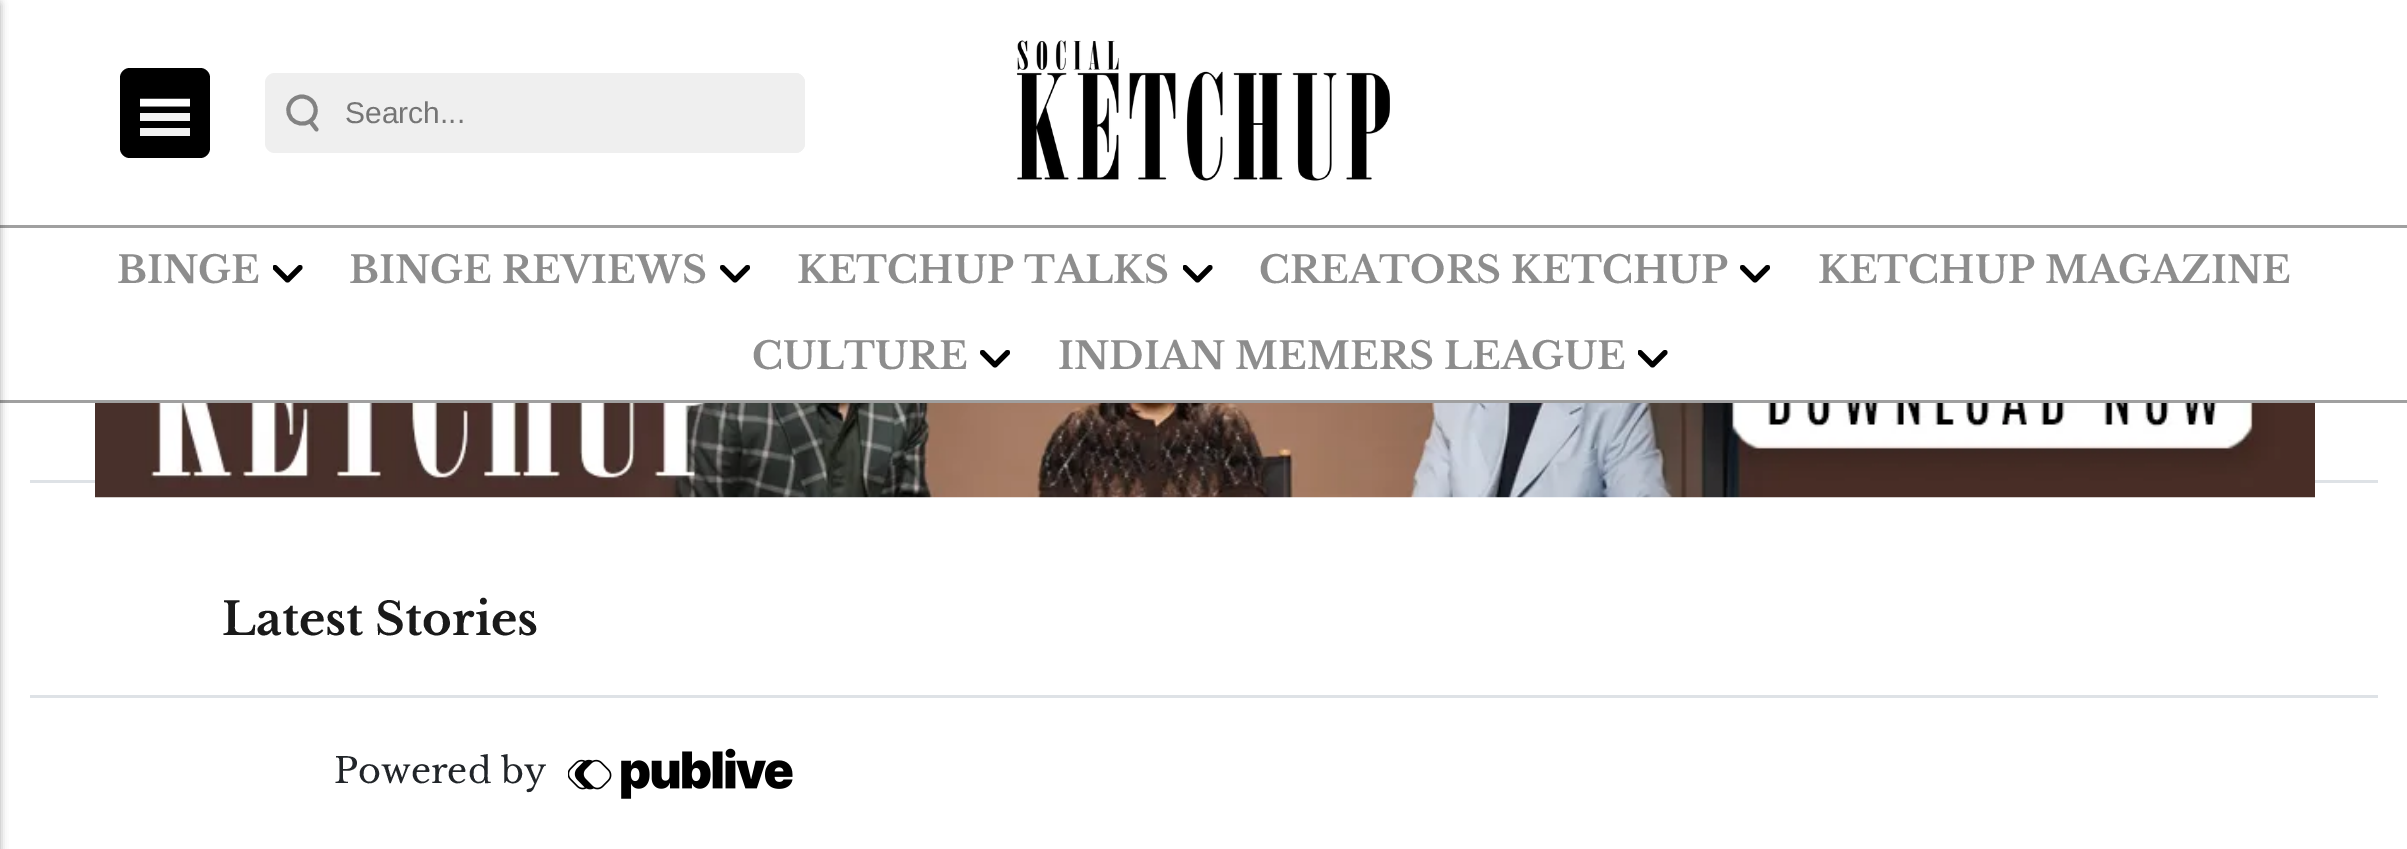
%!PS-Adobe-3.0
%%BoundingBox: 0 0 2407 849
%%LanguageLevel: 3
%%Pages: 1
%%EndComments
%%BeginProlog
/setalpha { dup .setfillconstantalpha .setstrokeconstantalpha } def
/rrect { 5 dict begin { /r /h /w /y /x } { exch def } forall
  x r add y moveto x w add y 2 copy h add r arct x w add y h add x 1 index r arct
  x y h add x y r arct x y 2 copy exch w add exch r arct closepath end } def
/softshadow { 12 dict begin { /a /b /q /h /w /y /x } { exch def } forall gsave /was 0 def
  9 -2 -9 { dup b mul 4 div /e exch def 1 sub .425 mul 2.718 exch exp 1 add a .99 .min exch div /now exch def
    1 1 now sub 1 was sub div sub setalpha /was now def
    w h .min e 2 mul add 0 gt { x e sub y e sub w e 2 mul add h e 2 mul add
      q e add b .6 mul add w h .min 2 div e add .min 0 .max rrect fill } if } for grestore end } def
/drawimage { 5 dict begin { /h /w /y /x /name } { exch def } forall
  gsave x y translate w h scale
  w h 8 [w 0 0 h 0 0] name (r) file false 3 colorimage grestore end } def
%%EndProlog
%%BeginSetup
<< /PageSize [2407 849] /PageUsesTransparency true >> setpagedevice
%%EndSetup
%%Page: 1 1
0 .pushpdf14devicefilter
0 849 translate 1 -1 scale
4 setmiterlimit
1 setgray
0 0 2407 849 rectfill
0.627 setgray
0 225 2407 3 rectfill
0 400 2407 3 rectfill
0 setgray
-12 5 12 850 0 4 0.22 softshadow
-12 0 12 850 0 4 0.12 softshadow
120 68 90 90 10 rrect fill
1 setgray
7.6 setlinewidth
newpath 140 102.5 moveto 190 102.5 lineto stroke
0.949 setgray
140 113 50 8 rectfill
140 128 50 8 rectfill
0.937 setgray
265 73 540 80 10 rrect fill
0.51 setgray
3.9 setlinewidth
1 setlinecap
1 setlinejoin
newpath 315.5 112 moveto 313 130 286 126 288.5 108 curveto 289 105.5 290 103 292 101 curveto 301 91 317.5 99 315.5 112 curveto closepath 316.5 129.5 moveto 310 121 lineto stroke
0.937 setgray
340 73 465 80 10 rrect fill
(images/1.raw) 1016 40 374 141 drawimage
gsave
273 265 30 18 rectclip
0 setgray
5 setlinewidth
newpath 275 267.5 moveto 287.5 280 lineto 300 267.5 lineto stroke
grestore
0 setgray
5 setlinewidth
newpath 722.5 267.5 moveto 735 280 lineto 747.5 267.5 lineto stroke
gsave
1183 265 30 18 rectclip
newpath 1185 267.5 moveto 1197.5 280 lineto 1210 267.5 lineto stroke
grestore
newpath 1742.5 267.5 moveto 1755 280 lineto 1767.5 267.5 lineto stroke
newpath 982.5 352.5 moveto 995 365 lineto 1007.5 352.5 lineto stroke
gsave
1638 350 30 18 rectclip
newpath 1640 352.5 moveto 1652.5 365 lineto 1665 352.5 lineto stroke
grestore
0.871 0.886 0.902 setrgbcolor
30 480 2348 3 rectfill
(images/2.raw) 95 403 2220 95 drawimage
30 695 2348 3 rectfill
(images/3.raw) 568 748 225 51 drawimage
/LiberationSans-Regular [30 0 0 -30 0 0] selectfont
0.459 setgray
345 123 moveto (Search...) show
/LibreBaskerville-Bold [37.5 0 0 -37.5 0 0] selectfont
0.553 setgray
117 283 moveto (BINGE) show
349 283 moveto (BINGE REVIEWS) show
797 283 moveto (KETCHUP TALKS) show
1259 283 moveto (CREATORS KETCHUP) show
1818 283 moveto (KETCHUP MAGAZINE) show
752 369 moveto (CULTURE) show
1058 369 moveto (INDIAN MEMERS LEAGUE) show
/LibreBaskerville-Bold [45 0 0 -45 0 0] selectfont
0.102 setgray
222 635 moveto (Latest Stories) show
/LibreBaskerville-Regular [35 0 0 -35 0 0] selectfont
0.129 0.145 0.161 setrgbcolor
334 783 moveto (Powered by) show
.poppdf14devicefilter showpage
%%EOF
